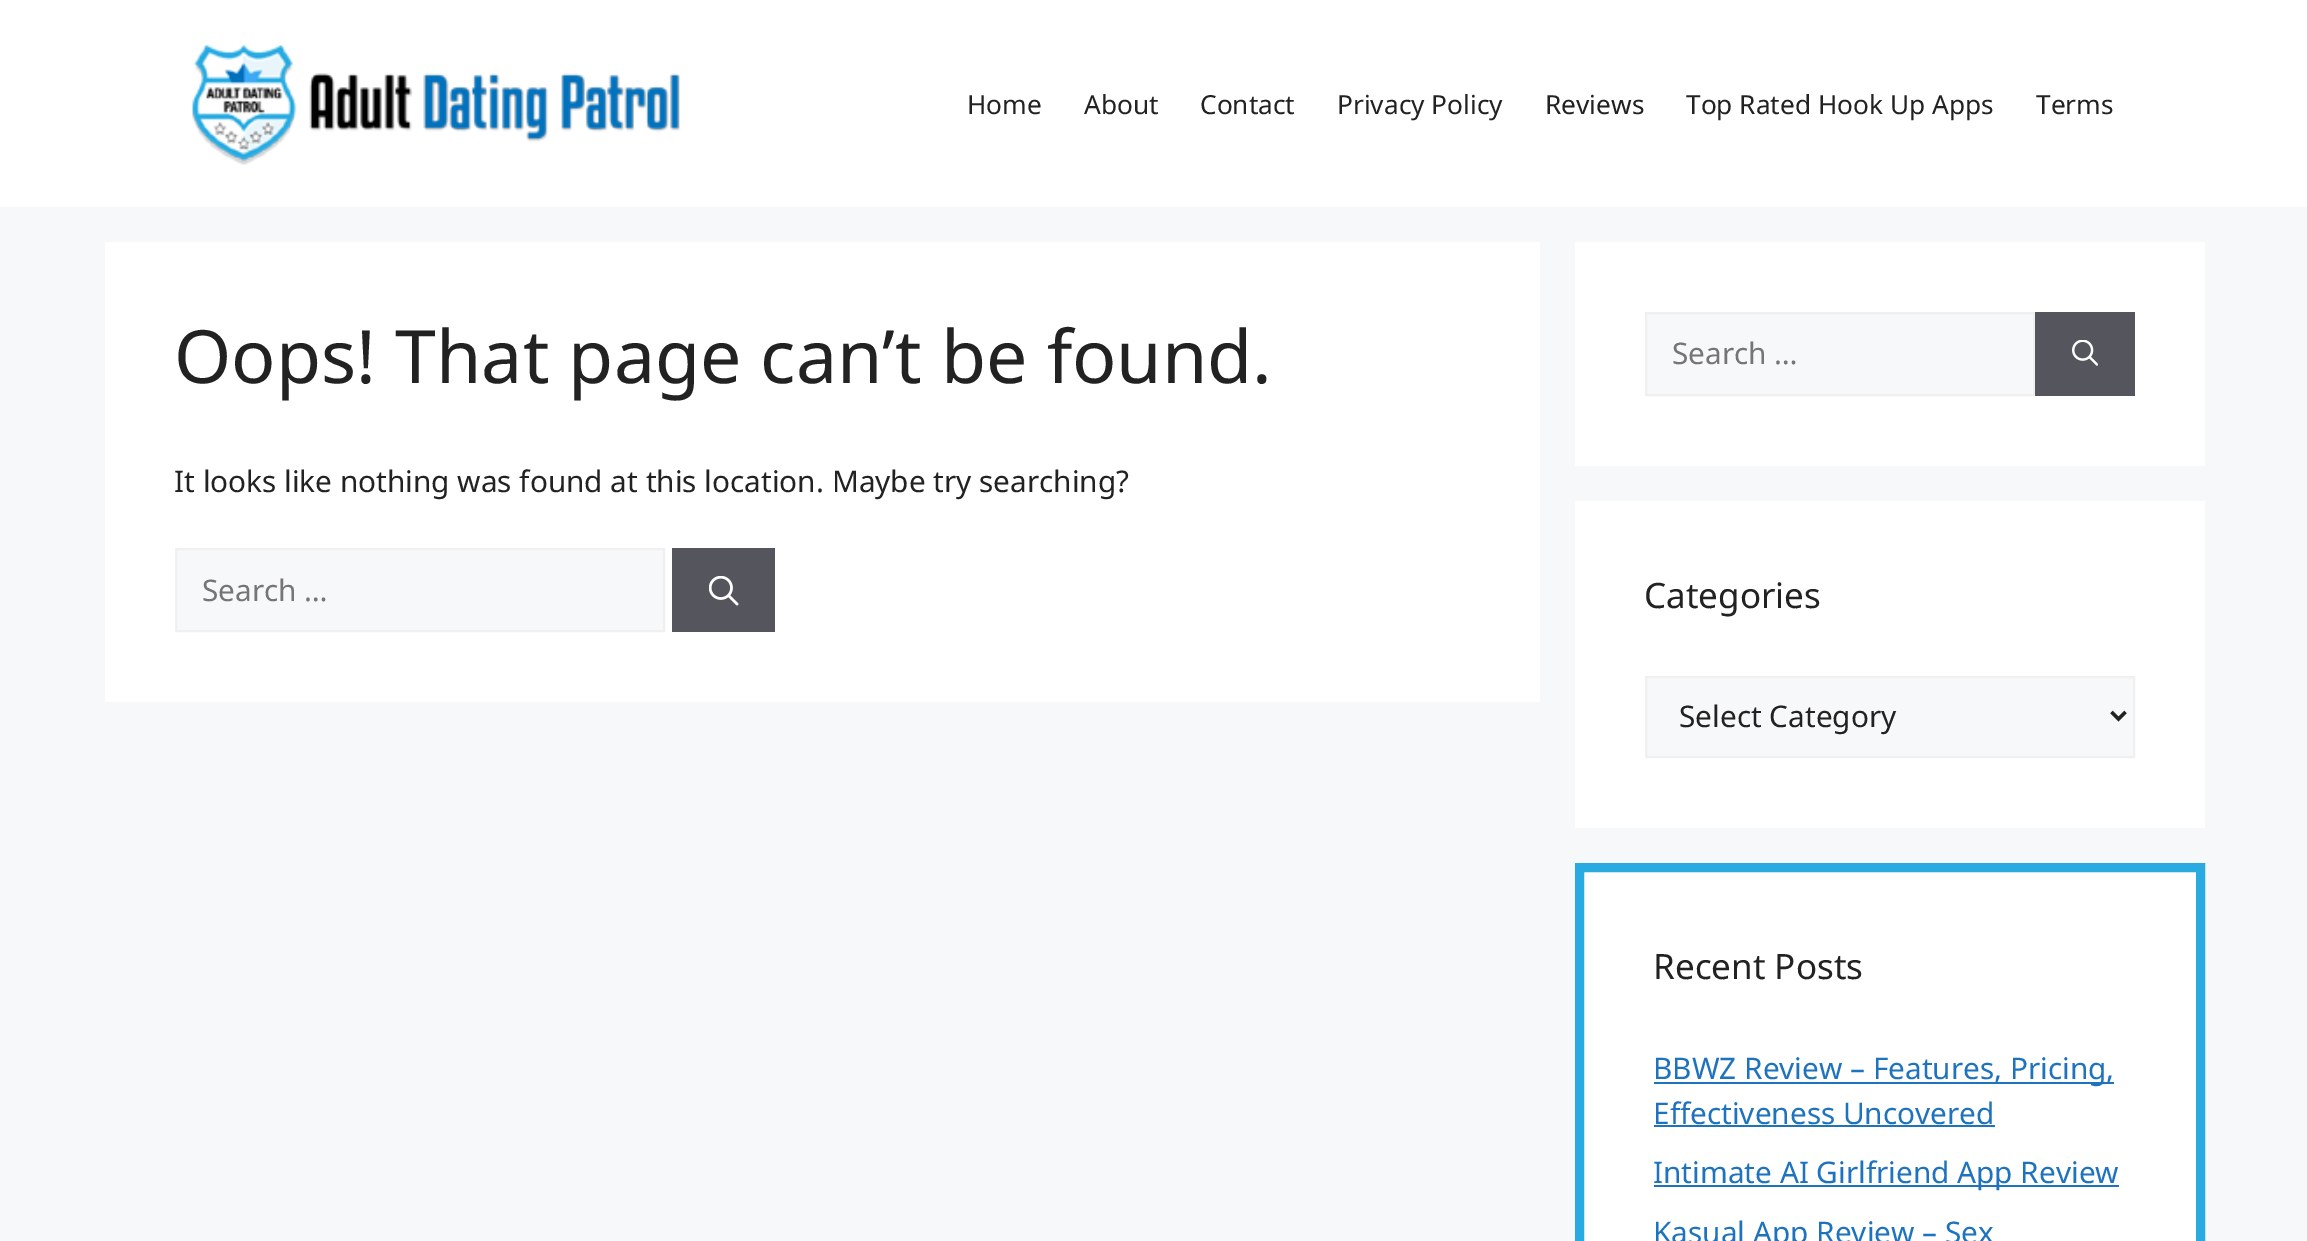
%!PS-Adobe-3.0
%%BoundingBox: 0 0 2307 1241
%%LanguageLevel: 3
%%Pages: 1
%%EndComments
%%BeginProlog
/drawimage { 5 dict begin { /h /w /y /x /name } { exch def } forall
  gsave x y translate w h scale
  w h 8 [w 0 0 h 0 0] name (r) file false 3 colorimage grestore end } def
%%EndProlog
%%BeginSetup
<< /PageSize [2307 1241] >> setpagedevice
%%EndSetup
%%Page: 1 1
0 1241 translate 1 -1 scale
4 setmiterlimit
0.969 0.973 0.976 setrgbcolor
0 0 2307 1241 rectfill
1 setgray
0 0 2307 207 rectfill
(images/1.raw) 192 45 489 120 drawimage
105 242 1435 460 rectfill
0.969 0.973 0.976 setrgbcolor
newpath 176 549 moveto 664 549 lineto 664 631 lineto 176 631 lineto closepath gsave fill grestore
0.941 setgray
2 setlinewidth
stroke
0.333 0.333 0.369 setrgbcolor
672 548 103 84 rectfill
(images/2.raw) 709 576 30 30 drawimage
1 setgray
1575 242 630 224 rectfill
0.969 0.973 0.976 setrgbcolor
newpath 1646 313 moveto 2034 313 lineto 2034 395 lineto 1646 395 lineto closepath gsave fill grestore
0.941 setgray
stroke
0.333 0.333 0.369 setrgbcolor
2035 312 100 84 rectfill
(images/3.raw) 2072 340 26 26 drawimage
1 setgray
1575 501 630 327 rectfill
0.969 0.973 0.976 setrgbcolor
newpath 1646 677 moveto 2134 677 lineto 2134 757 lineto 1646 757 lineto closepath gsave fill grestore
0.941 setgray
stroke
0.133 setgray
3.5 setlinewidth
newpath 2111.5 712 moveto 2118.5 719 lineto 2125.5 712 lineto stroke
1 setgray
newpath 1579.5 867.5 moveto 2200.5 867.5 lineto 2200.5 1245.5 lineto 1579.5 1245.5 lineto closepath gsave fill grestore
0.161 0.671 0.886 setrgbcolor
9 setlinewidth
stroke
0.118 0.451 0.745 setrgbcolor
1654 1082 460 2 rectfill
1654 1125 341 2 rectfill
1654 1185 465 2 rectfill
/NotoSans-Regular [26.25 0 0 -26.25 0 0] selectfont
0.133 setgray
967 114 moveto (Home) show
1084 114 moveto (About) show
1200 114 moveto (Contact) show
1337 114 moveto (Privacy Policy) show
1545 114 moveto (Reviews) show
1686 114 moveto (Top Rated Hook Up Apps) show
2036 114 moveto (Terms) show
/NotoSans-Regular [73.5 0 0 -73.5 0 0] selectfont
174 383 moveto (Oops! That page can’t be found.) show
/NotoSans-Regular [29.75 0 0 -29.75 0 0] selectfont
174 492 moveto (It looks like nothing was found at this location. Maybe try searching?) show
0.459 setgray
202 601 moveto (Search …) show
1672 364 moveto (Search …) show
/NotoSans-Regular [35 0 0 -35 0 0] selectfont
0.133 setgray
1644 608 moveto (Categories) show
/NotoSans-Regular [29.75 0 0 -29.75 0 0] selectfont
1679 727 moveto (Select Category) show
/NotoSans-Regular [35 0 0 -35 0 0] selectfont
1653 979 moveto (Recent Posts) show
/NotoSans-Regular [29.75 0 0 -29.75 0 0] selectfont
0.118 0.451 0.745 setrgbcolor
1653 1079 moveto (BBWZ Review – Features, Pricing,) show
1653 1124 moveto (Effectiveness Uncovered) show
1653 1183 moveto (Intimate AI Girlfriend App Review) show
1653 1243 moveto (Kasual App Review – Sex) show
showpage
%%EOF
